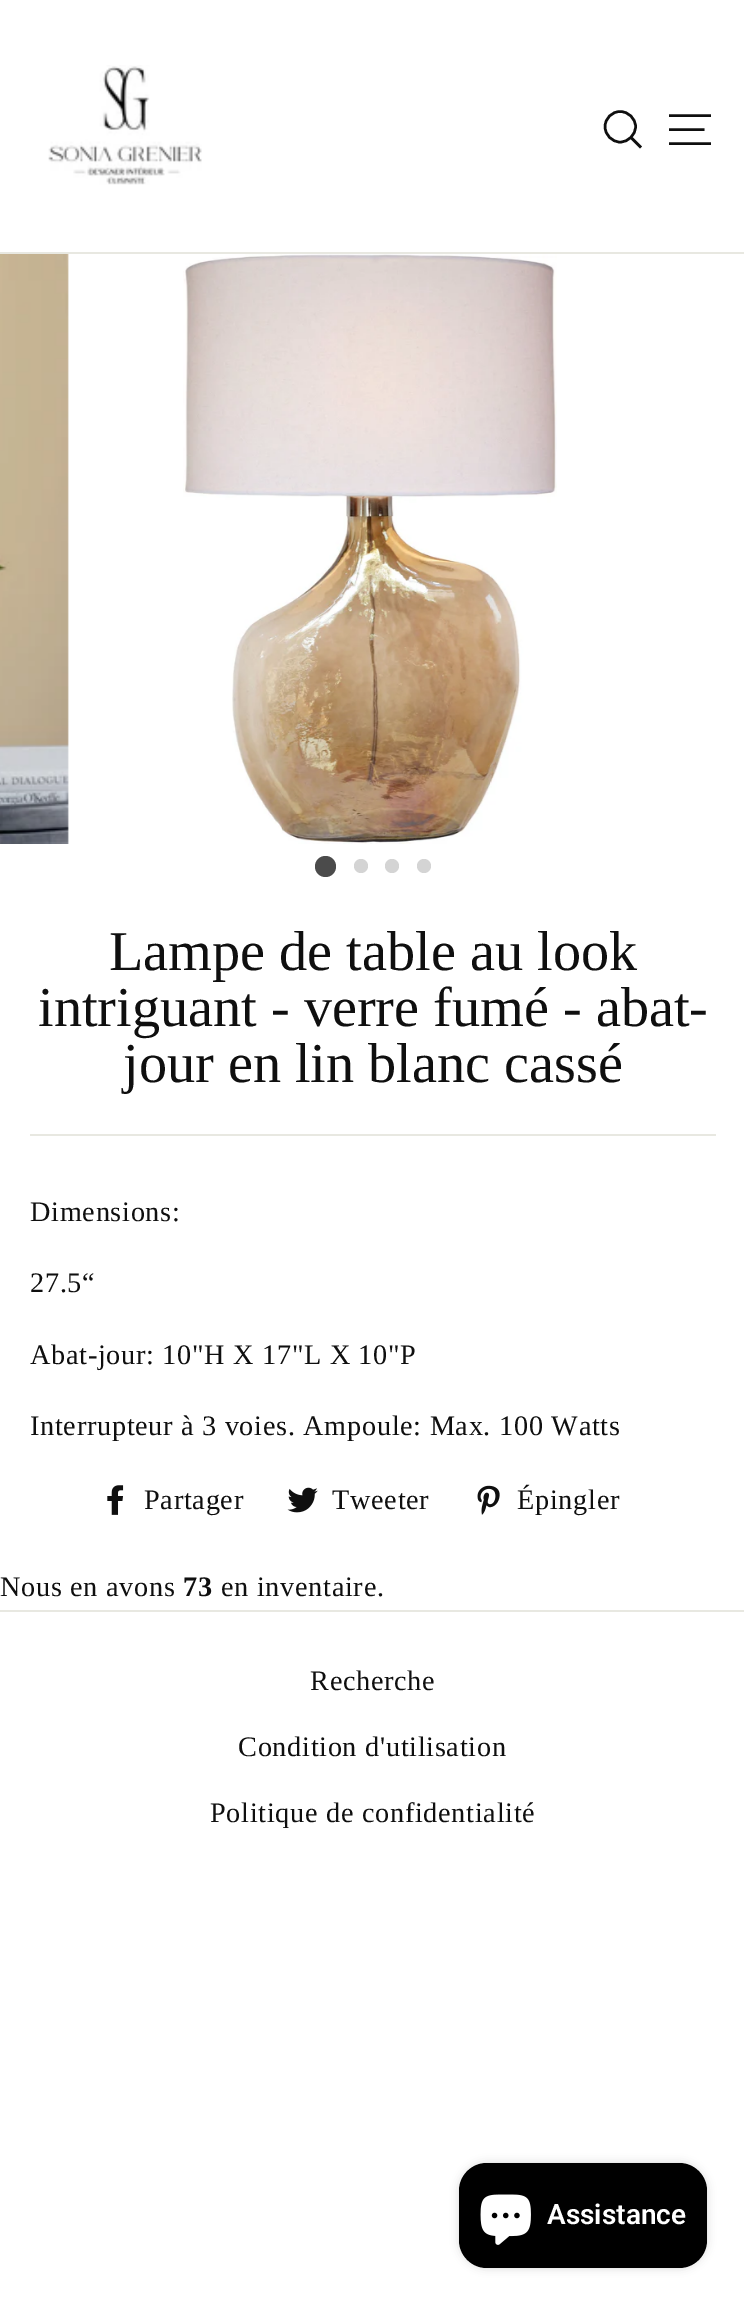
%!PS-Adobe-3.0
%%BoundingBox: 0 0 744 2304
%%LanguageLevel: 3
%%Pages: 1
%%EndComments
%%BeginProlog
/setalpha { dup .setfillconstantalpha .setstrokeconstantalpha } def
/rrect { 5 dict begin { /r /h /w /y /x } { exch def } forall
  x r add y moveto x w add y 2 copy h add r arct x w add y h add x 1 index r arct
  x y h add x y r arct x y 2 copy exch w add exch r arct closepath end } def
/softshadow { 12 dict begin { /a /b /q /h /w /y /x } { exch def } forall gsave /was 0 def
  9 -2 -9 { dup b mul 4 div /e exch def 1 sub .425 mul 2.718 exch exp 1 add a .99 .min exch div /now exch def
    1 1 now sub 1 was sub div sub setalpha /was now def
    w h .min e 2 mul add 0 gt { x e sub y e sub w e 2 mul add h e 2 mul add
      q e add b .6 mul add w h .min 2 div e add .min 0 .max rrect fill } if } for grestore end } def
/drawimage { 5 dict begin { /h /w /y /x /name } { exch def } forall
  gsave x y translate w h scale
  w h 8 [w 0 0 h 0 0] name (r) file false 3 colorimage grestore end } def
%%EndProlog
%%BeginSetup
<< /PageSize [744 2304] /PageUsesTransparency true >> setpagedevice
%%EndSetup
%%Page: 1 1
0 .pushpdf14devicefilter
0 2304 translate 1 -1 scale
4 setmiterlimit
1 setgray
0 0 744 2304 rectfill
0.91 0.91 0.882 setrgbcolor
0 252 744 2 rectfill
(images/1.raw) 48 65 154 120 drawimage
0.059 setgray
2.5 setlinewidth
newpath 635.5 126.5 moveto 635.5 135 628.5 142 620 142 curveto 612 142 605 135 605 126.5 curveto 605 118.5 612 111.5 620 111.5 curveto 628.5 111.5 635.5 118.5 635.5 126.5 curveto closepath 641 147.5 moveto 631 137.5 lineto stroke
newpath 669 115.5 moveto 711 115.5 lineto 669 129.5 moveto 704.5 129.5 lineto 669 143.5 moveto 711 143.5 lineto stroke
(images/2.raw) 0 254 69 590 drawimage
(images/3.raw) 183 254 374 590 drawimage
0.294 setgray
newpath 325.5 866.5 10.5 0 360 arc closepath fill
0.831 setgray
newpath 361 866 7 0 360 arc closepath fill
newpath 392 866 7 0 360 arc closepath fill
newpath 424 866 7 0 360 arc closepath fill
0.91 0.91 0.882 setrgbcolor
30 1134 686 2 rectfill
(images/4.raw) 107 1485 17 30 drawimage
(images/5.raw) 287 1487 31 26 drawimage
(images/6.raw) 477 1485 23 30 drawimage
0 1610 744 2 rectfill
0 setgray
459 2163 248 105 28 4.5 0.15 softshadow
459 2163 248 105 28 rrect fill
(images/7.raw) 480 2194 51 51 drawimage
/LiberationSerif-Regular [56.25 0 0 -56.25 0 0] selectfont
0.059 setgray
109 970 moveto (Lampe de table au look) show
38 1026 moveto (intriguant - verre fumé - abat-) show
123 1082 moveto (jour en lin blanc cassé) show
/LiberationSerif-Regular [28.25 0 0 -28.25 0 0] selectfont
30 1221 moveto 0.7 0 (Dimensions:) ashow
30 1292 moveto 0.7 0 (27.5“) ashow
30 1364 moveto 0.7 0 (Abat-jour: 10"H X 17"L X 10"P) ashow
30 1435 moveto 0.7 0 (Interrupteur à 3 voies. Ampoule: Max. 100 Watts) ashow
144 1509 moveto 0.7 0 (Partager) ashow
332 1509 moveto 0.7 0 (Tweeter) ashow
517 1509 moveto 0.7 0 (Épingler) ashow
0 1596 moveto 0.7 0 (Nous en avons) ashow
/LiberationSerif-Bold [28.25 0 0 -28.25 0 0] selectfont
183 1596 moveto 0.7 0 (73) ashow
/LiberationSerif-Regular [28.25 0 0 -28.25 0 0] selectfont
221 1596 moveto 0.7 0 (en inventaire.) ashow
310 1690 moveto 0.7 0 (Recherche) ashow
238 1756 moveto 0.7 0 (Condition d'utilisation) ashow
210 1822 moveto 0.7 0 (Politique de confidentialité) ashow
/Roboto-SemiBold [28 0 0 -28 0 0] selectfont
1 setgray
547 2224 moveto (Assistance) show
.poppdf14devicefilter showpage
%%EOF
